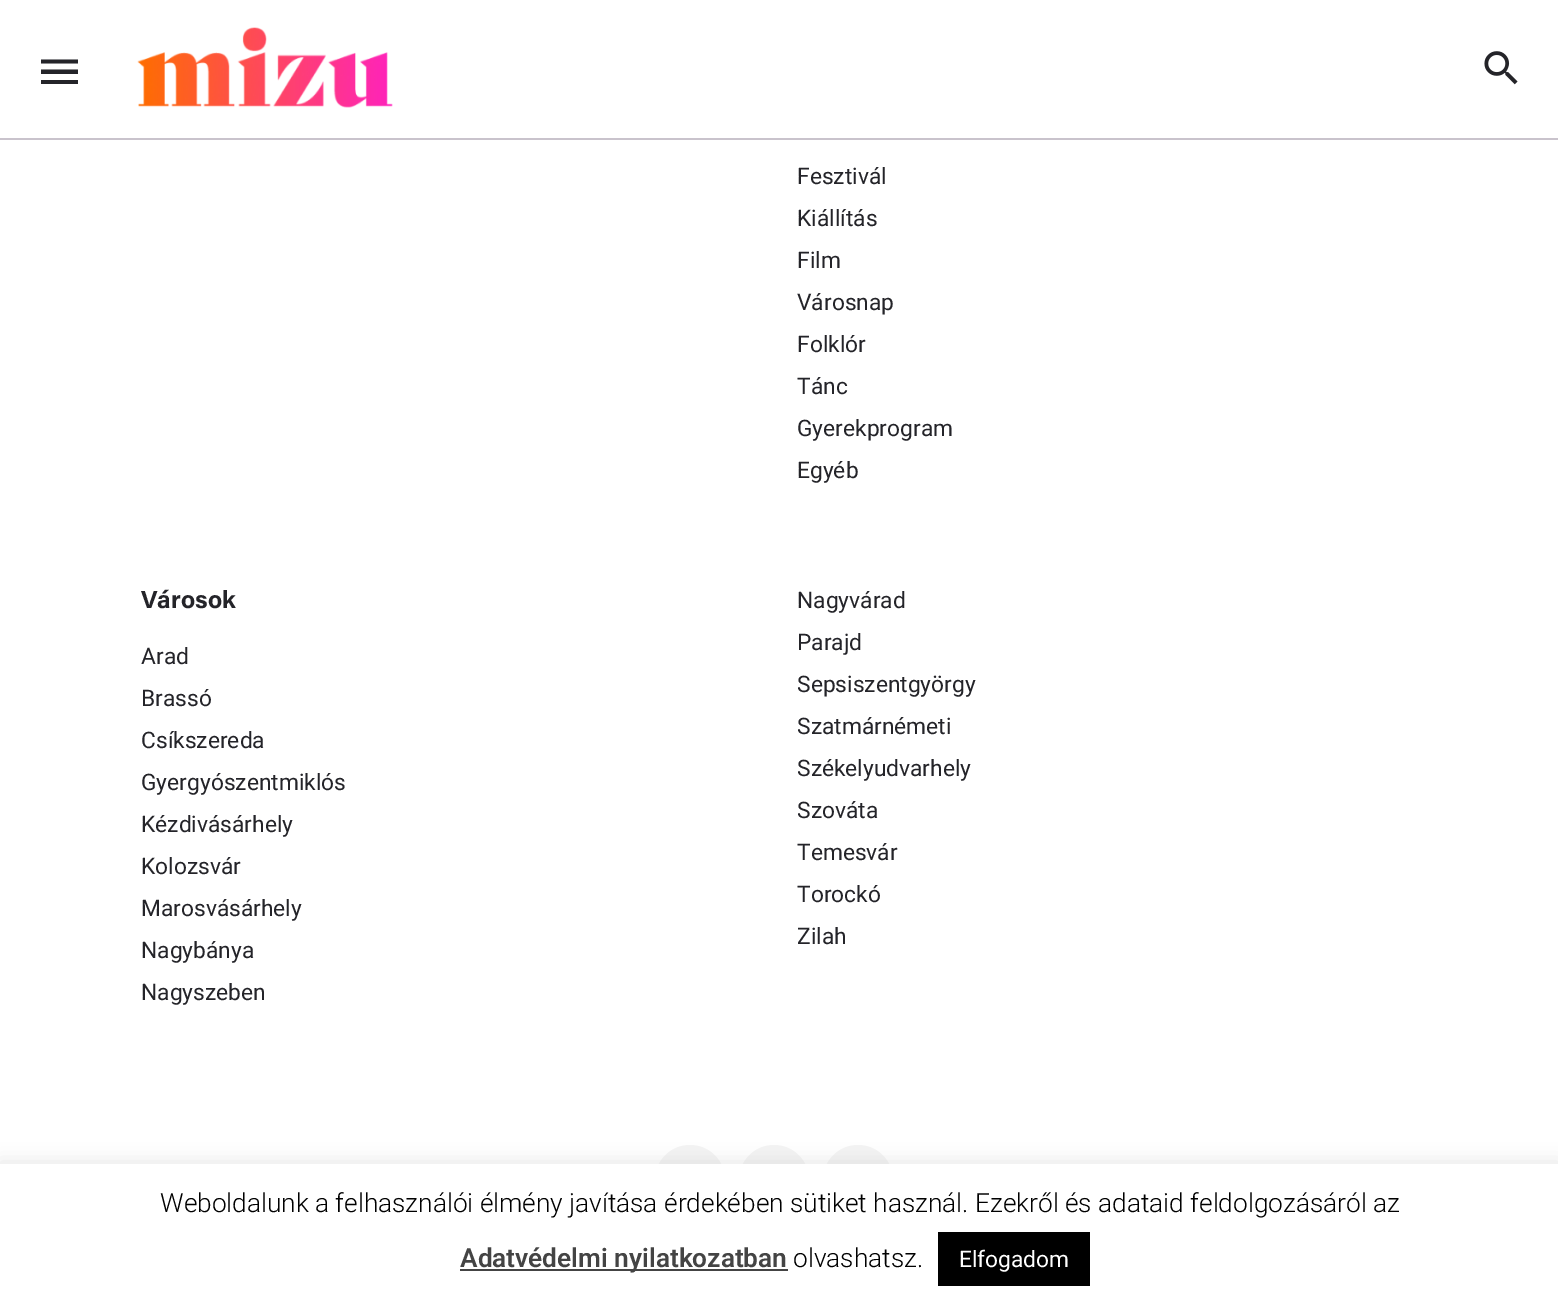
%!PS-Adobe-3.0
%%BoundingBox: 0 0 1558 1316
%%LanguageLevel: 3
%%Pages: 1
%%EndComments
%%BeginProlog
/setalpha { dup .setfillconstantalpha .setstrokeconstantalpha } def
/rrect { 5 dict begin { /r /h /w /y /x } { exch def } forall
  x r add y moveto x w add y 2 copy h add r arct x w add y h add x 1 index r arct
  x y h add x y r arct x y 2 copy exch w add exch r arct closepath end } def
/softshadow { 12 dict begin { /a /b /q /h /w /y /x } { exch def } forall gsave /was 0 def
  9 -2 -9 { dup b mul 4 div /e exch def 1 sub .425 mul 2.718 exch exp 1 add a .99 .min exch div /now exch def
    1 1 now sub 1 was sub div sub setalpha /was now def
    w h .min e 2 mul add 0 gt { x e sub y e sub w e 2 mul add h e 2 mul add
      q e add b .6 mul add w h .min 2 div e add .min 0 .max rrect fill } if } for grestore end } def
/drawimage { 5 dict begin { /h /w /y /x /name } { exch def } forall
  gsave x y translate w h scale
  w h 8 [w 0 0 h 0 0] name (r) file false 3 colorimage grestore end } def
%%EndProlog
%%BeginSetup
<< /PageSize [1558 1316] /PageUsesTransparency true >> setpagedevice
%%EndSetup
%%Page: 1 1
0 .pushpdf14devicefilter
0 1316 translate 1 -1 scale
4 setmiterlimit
1 setgray
0 0 1558 1316 rectfill
0.141 0.141 0.161 setrgbcolor
newpath 41 59.5 moveto 78 59.5 lineto 78 63.5 lineto 41 63.5 lineto closepath 41 74 moveto 41 69.5 lineto 78 69.5 lineto 78 74 lineto closepath 41 84 moveto 41 80 lineto 78 80 lineto 78 84 lineto closepath fill
(images/1.raw) 137 27 256 81 drawimage
(images/2.raw) 1484 51 34 34 drawimage
0.788 0.765 0.8 setrgbcolor
0 138 1558 2 rectfill
0.957 setgray
newpath 690 1180 35 0 360 arc closepath fill
newpath 774 1180 35 0 360 arc closepath fill
newpath 858 1180 35 0 360 arc closepath fill
0.675 0.671 0.671 setrgbcolor
0 1162 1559 152 0 9 0.3 softshadow
1 setgray
0 1164 1558 152 rectfill
0.267 setgray
460 1269 328 2 rectfill
0 setgray
938 1232 152 54 rectfill
/Roboto-Regular [22.75 0 0 -22.75 0 0] selectfont
0.141 0.141 0.161 setrgbcolor
797 184 moveto (Fesztivál) show
797 226 moveto (Kiállítás) show
797 268 moveto (Film) show
797 310 moveto (Városnap) show
797 352 moveto (Folklór) show
797 394 moveto (Tánc) show
797 436 moveto (Gyerekprogram) show
797 478 moveto (Egyéb) show
/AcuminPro-Bold [24.5 0 0 -24.5 0 0] selectfont
141 608 moveto (Városok) show
/Roboto-Regular [22.75 0 0 -22.75 0 0] selectfont
141 664 moveto (Arad) show
141 706 moveto (Brassó) show
141 748 moveto (Csíkszereda) show
141 790 moveto (Gyergyószentmiklós) show
141 832 moveto (Kézdivásárhely) show
141 874 moveto (Kolozsvár) show
141 916 moveto (Marosvásárhely) show
141 958 moveto (Nagybánya) show
141 1000 moveto (Nagyszeben) show
797 608 moveto (Nagyvárad) show
797 650 moveto (Parajd) show
797 692 moveto (Sepsiszentgyörgy) show
797 734 moveto (Szatmárnémeti) show
797 776 moveto (Székelyudvarhely) show
797 818 moveto (Szováta) show
797 860 moveto (Temesvár) show
797 902 moveto (Torockó) show
797 944 moveto (Zilah) show
/Roboto-Light [26.25 0 0 -26.25 0 0] selectfont
0 setgray
160 1212 moveto (Weboldalunk a felhasználói élmény javítása érdekében sütiket használ. Ezekről és adataid feldolgozásáról az) show
/Roboto-SemiBold [26.25 0 0 -26.25 0 0] selectfont
0.267 setgray
460 1267 moveto (Adatvédelmi nyilatkozatban) show
/Roboto-Light [26.25 0 0 -26.25 0 0] selectfont
0 setgray
793 1267 moveto (olvashatsz.) show
/Roboto-Regular [22.75 0 0 -22.75 0 0] selectfont
1 setgray
959 1267 moveto (Elfogadom) show
.poppdf14devicefilter showpage
%%EOF
